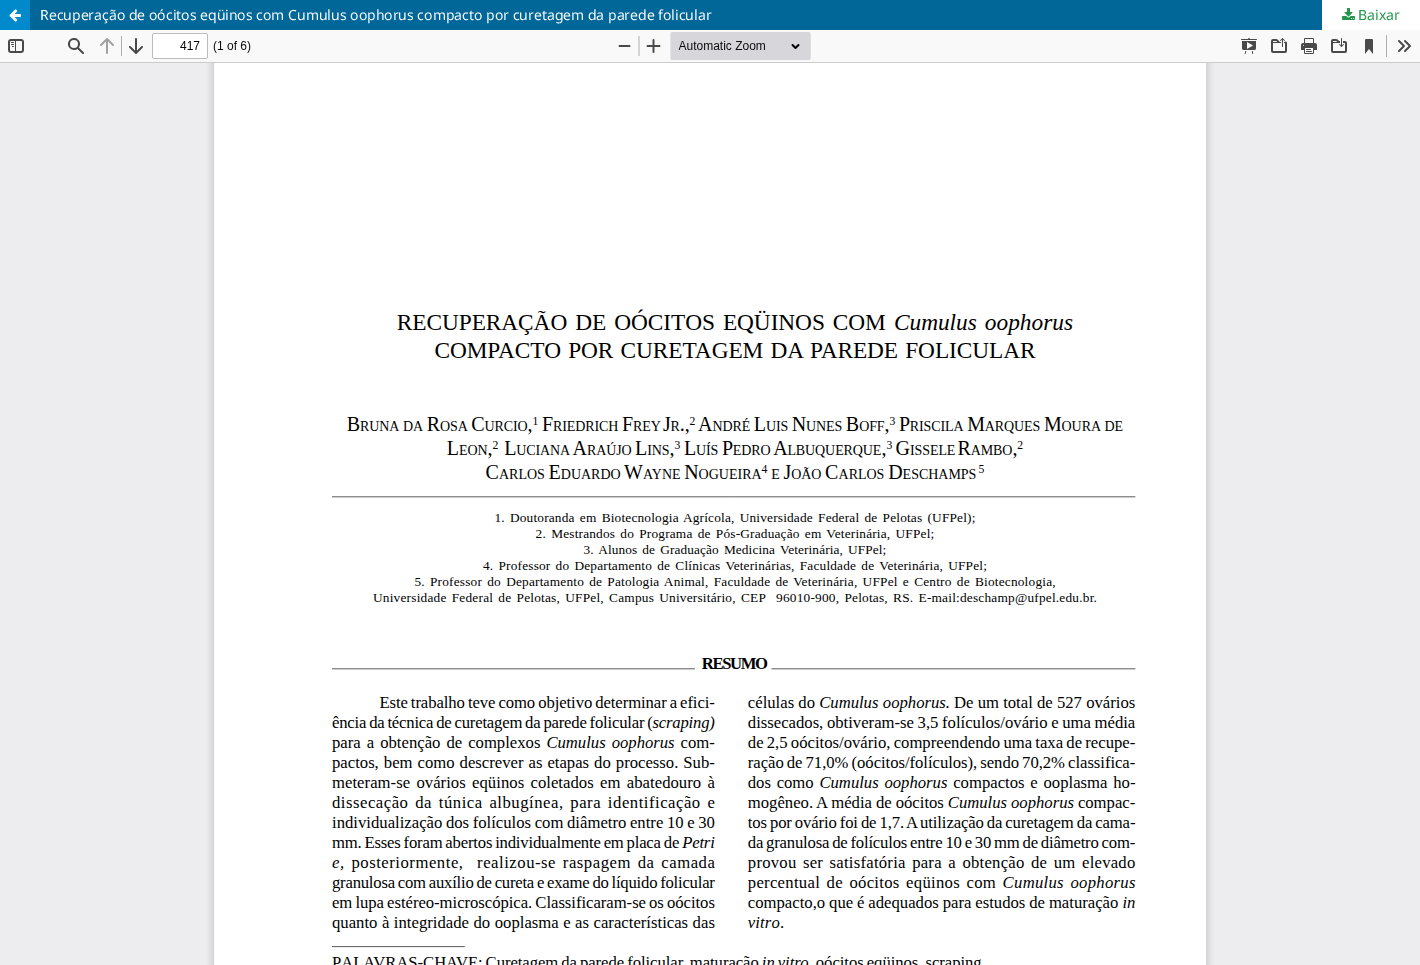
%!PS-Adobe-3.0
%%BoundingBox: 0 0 1420 965
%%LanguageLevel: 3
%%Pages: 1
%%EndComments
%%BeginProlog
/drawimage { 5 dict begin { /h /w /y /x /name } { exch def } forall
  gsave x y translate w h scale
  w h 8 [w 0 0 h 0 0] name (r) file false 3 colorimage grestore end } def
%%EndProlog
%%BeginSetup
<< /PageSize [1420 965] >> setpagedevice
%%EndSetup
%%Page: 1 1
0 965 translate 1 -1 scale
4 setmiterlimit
1 setgray
0 0 1420 965 rectfill
0 0.404 0.596 setrgbcolor
30 0 1292 30 rectfill
0 0.541 0.796 setrgbcolor
0 0 30 30 rectfill
(images/1.raw) 9 9 12 13 drawimage
(images/2.raw) 1342 8 13 12 drawimage
(images/3.raw) 0 30 1420 935 drawimage
/NotoSans-Regular [14 0 0 -14 0 0] selectfont
1 setgray
40 20 moveto (Recuperação de oócitos eqüinos com Cumulus oophorus compacto por curetagem da parede folicular) show
0.133 0.588 0.302 setrgbcolor
1358 20 moveto (Baixar) show
showpage
%%EOF
